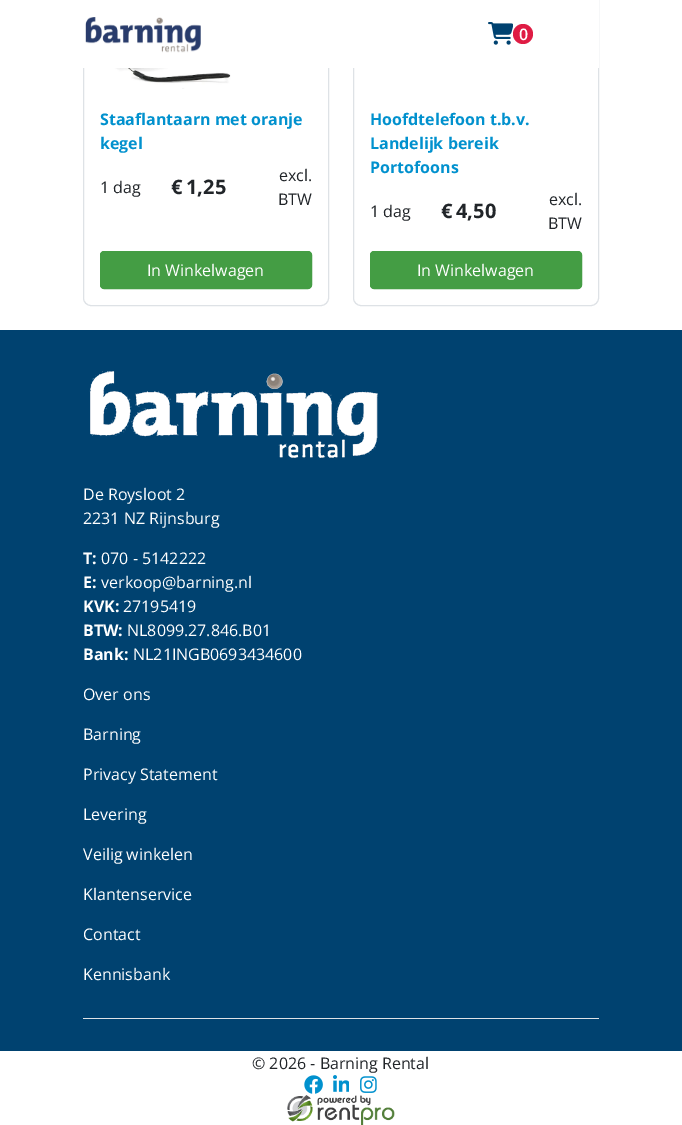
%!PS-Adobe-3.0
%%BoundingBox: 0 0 682 1125
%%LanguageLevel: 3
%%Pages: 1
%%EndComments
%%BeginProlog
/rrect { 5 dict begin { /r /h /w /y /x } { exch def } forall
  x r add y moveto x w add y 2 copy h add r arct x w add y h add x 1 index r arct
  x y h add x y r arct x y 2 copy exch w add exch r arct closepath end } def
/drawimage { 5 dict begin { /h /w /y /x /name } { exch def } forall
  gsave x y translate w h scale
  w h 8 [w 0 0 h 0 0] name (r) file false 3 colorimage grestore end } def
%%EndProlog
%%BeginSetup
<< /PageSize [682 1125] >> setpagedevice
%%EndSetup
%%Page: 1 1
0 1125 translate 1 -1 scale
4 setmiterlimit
1 setgray
0 0 682 1125 rectfill
0.871 0.886 0.902 setrgbcolor
83.5 -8.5 245 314 7.5 rrect stroke
353.5 -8.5 245 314 7.5 rrect stroke
1 setgray
83 0 516 68 rectfill
(images/1.raw) 85 17 116 36 drawimage
(images/2.raw) 488 22 25 23 drawimage
0.875 0.11 0.267 setrgbcolor
newpath 523 34 10 0 360 arc closepath fill
(images/3.raw) 113 68 118 21 drawimage
0.267 0.616 0.267 setrgbcolor
100.5 251.5 211 37 3.5 rrect gsave fill grestore
stroke
370.5 251.5 211 37 3.5 rrect gsave fill grestore
stroke
0 0.259 0.439 setrgbcolor
0 330 682 721 rectfill
(images/4.raw) 89 371 289 87 drawimage
0.871 0.886 0.902 setrgbcolor
83 1018 516 1 rectfill
(images/5.raw) 304 1075 19 19 drawimage
(images/6.raw) 333 1075 16 17 drawimage
(images/7.raw) 360 1076 17 17 drawimage
(images/8.raw) 287 1095 108 30 drawimage
/OpenSans-SemiBold [16 0 0 -16 0 0] selectfont
1 setgray
519 40 moveto (0) show
/OpenSans-Bold [16 0 0 -16 0 0] selectfont
0.004 0.569 0.808 setrgbcolor
100 125 moveto (Staaflantaarn met oranje) show
100 149 moveto (kegel) show
/OpenSans-Regular [16 0 0 -16 0 0] selectfont
0.129 0.145 0.161 setrgbcolor
100 193 moveto (1 dag) show
/OpenSans-Bold [20 0 0 -20 0 0] selectfont
171 194 moveto (€) show
186 194 moveto (1,25) show
/OpenSans-Regular [16 0 0 -16 0 0] selectfont
279 181 moveto (excl.) show
278 205 moveto (BTW) show
1 setgray
147 276 moveto (In Winkelwagen) show
/OpenSans-Bold [16 0 0 -16 0 0] selectfont
0.004 0.569 0.808 setrgbcolor
370 125 moveto (Hoofdtelefoon t.b.v.) show
370 149 moveto (Landelijk bereik) show
370 173 moveto (Portofoons) show
/OpenSans-Regular [16 0 0 -16 0 0] selectfont
0.129 0.145 0.161 setrgbcolor
370 217 moveto (1 dag) show
/OpenSans-Bold [20 0 0 -20 0 0] selectfont
441 218 moveto (€) show
456 218 moveto (4,50) show
/OpenSans-Regular [16 0 0 -16 0 0] selectfont
549 205 moveto (excl.) show
548 229 moveto (BTW) show
1 setgray
417 276 moveto (In Winkelwagen) show
83 500 moveto (De Roysloot 2) show
83 524 moveto (2231 NZ Rijnsburg) show
/OpenSans-Bold [16 0 0 -16 0 0] selectfont
83 564 moveto (T:) show
/OpenSans-Regular [16 0 0 -16 0 0] selectfont
101 564 moveto (070 - 5142222) show
/OpenSans-Bold [16 0 0 -16 0 0] selectfont
83 588 moveto (E:) show
/OpenSans-Regular [16 0 0 -16 0 0] selectfont
101 588 moveto (verkoop@barning.nl) show
/OpenSans-Bold [16 0 0 -16 0 0] selectfont
83 612 moveto (KVK:) show
/OpenSans-Regular [16 0 0 -16 0 0] selectfont
123 612 moveto (27195419) show
/OpenSans-Bold [16 0 0 -16 0 0] selectfont
83 636 moveto (BTW:) show
/OpenSans-Regular [16 0 0 -16 0 0] selectfont
127 636 moveto (NL8099.27.846.B01) show
/OpenSans-Bold [16 0 0 -16 0 0] selectfont
83 660 moveto (Bank:) show
/OpenSans-Regular [16 0 0 -16 0 0] selectfont
133 660 moveto (NL21INGB0693434600) show
83 700 moveto (Over ons) show
83 740 moveto (Barning) show
83 780 moveto (Privacy Statement) show
83 820 moveto (Levering) show
83 860 moveto (Veilig winkelen) show
83 900 moveto (Klantenservice) show
83 940 moveto (Contact) show
83 980 moveto (Kennisbank) show
0.129 0.145 0.161 setrgbcolor
252 1069 moveto (© 2026 - Barning Rental) show
showpage
%%EOF
